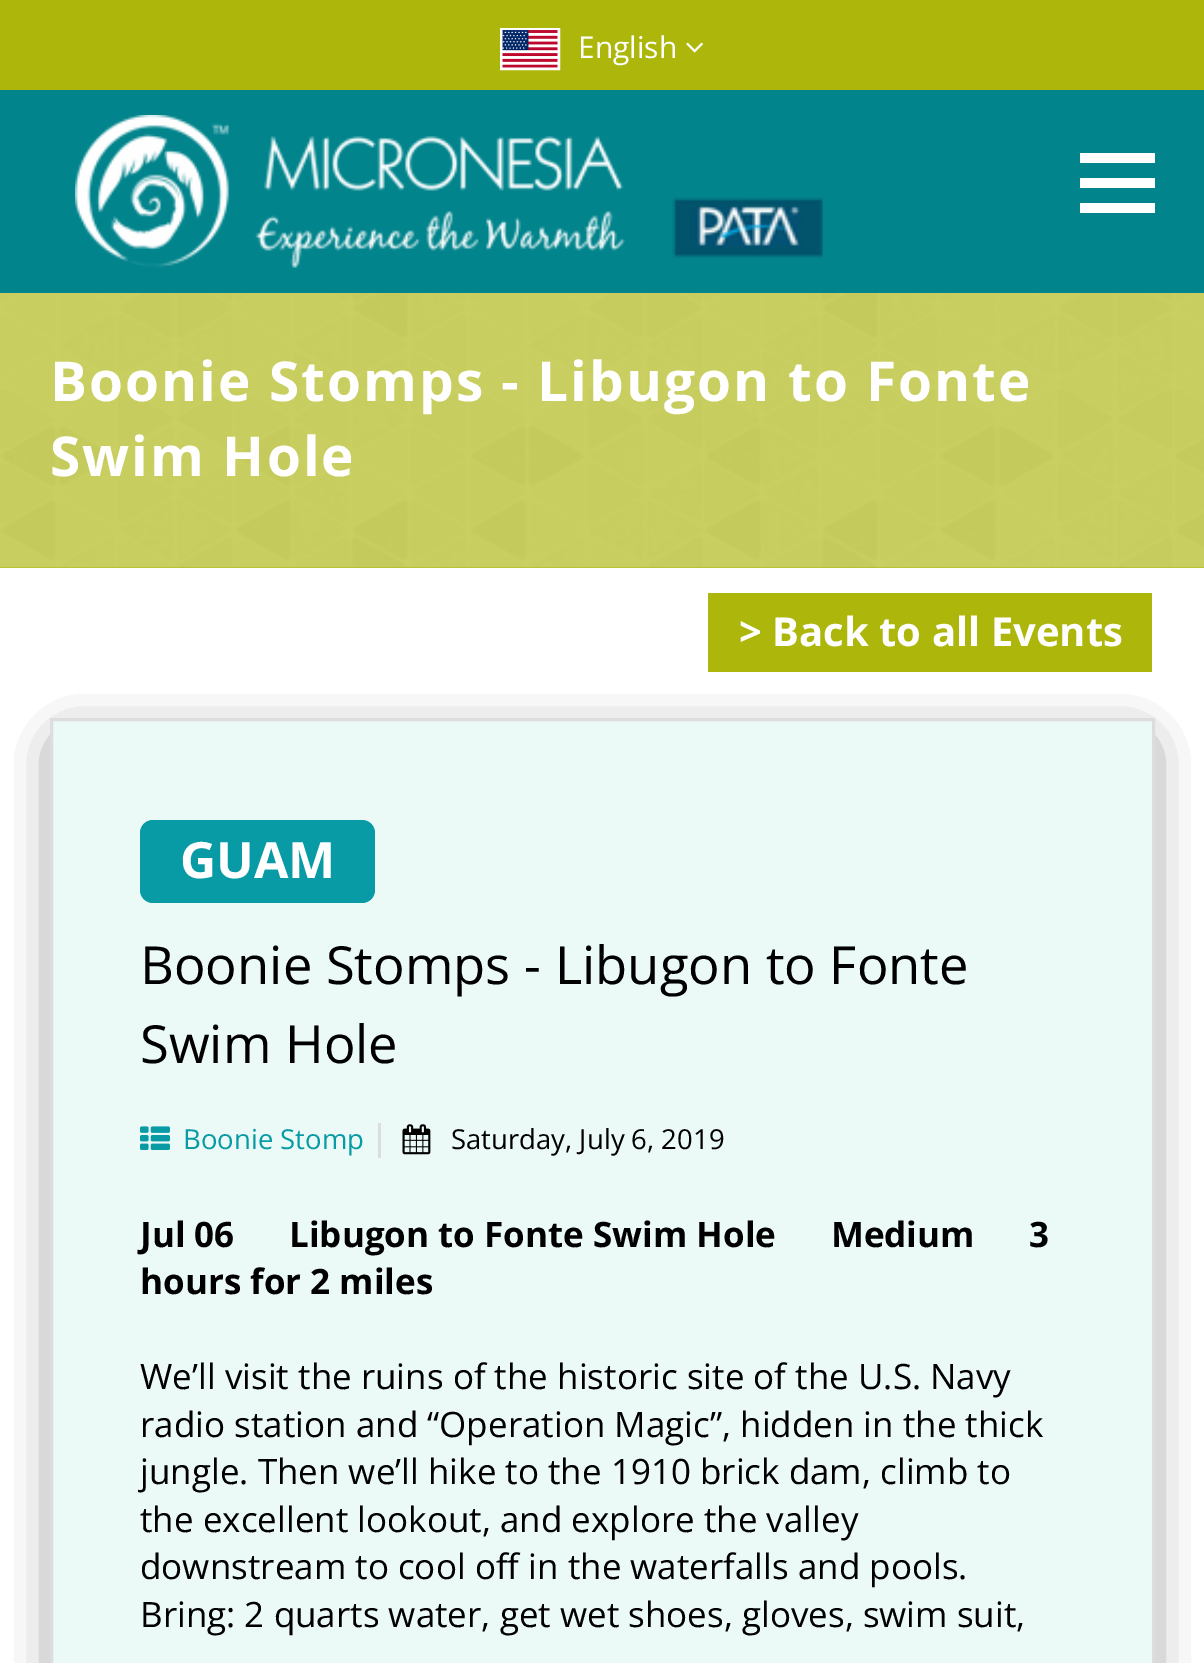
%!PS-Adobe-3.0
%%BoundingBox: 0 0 1204 1663
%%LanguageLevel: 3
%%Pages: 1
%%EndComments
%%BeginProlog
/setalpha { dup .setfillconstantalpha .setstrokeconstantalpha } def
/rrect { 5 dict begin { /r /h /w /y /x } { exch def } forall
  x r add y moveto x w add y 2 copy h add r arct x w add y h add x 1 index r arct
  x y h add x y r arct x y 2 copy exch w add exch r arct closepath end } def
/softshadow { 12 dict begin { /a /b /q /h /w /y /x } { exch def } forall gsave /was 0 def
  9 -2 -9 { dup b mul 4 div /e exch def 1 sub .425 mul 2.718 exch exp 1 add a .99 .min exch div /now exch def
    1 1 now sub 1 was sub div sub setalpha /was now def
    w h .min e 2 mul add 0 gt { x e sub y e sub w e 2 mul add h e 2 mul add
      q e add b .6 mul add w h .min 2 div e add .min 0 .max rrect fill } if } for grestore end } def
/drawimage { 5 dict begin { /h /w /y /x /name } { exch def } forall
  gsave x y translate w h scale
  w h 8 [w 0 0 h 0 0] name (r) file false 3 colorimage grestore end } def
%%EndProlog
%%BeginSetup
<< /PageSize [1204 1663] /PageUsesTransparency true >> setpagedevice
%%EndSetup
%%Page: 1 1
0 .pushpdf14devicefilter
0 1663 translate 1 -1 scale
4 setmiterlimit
1 setgray
0 0 1204 1663 rectfill
0.678 0.714 0.043 setrgbcolor
0 0 1204 90 rectfill
1 setgray
3 setlinewidth
501.5 29.5 57 39 rectstroke
(images/1.raw) 502 30 56 38 drawimage
(images/2.raw) 686 42 17 11 drawimage
0.004 0.518 0.549 setrgbcolor
0 90 1204 203 rectfill
(images/3.raw) 75 115 550 153 drawimage
(images/4.raw) 672 197 151 61 drawimage
1 setgray
1080 153 75 10 rectfill
1080 178 75 10 rectfill
1080 203 75 10 rectfill
0.678 0.714 0.043 setrgbcolor
0 293 1204 275 rectfill
(images/5.raw) 0 293 1204 275 drawimage
708 593 444 79 rectfill
0 setgray
70 750 1065 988 0 25 1 softshadow
0.922 0.976 0.969 setrgbcolor
newpath 51.5 719.5 moveto 1153.5 719.5 lineto 1153.5 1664.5 lineto 51.5 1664.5 lineto closepath gsave fill grestore
0.867 setgray
stroke
0.031 0.608 0.647 setrgbcolor
140 820 235 83 13 rrect fill
(images/6.raw) 140 1126 30 24 drawimage
0.867 setgray
378 1123 3 35 rectfill
(images/7.raw) 402 1124 29 31 drawimage
/OpenSans-Regular [30 0 0 -30 0 0] selectfont
1 setgray
578 58 moveto (English) show
/OpenSans-Bold [55 0 0 -55 0 0] selectfont
50 401 moveto 2 0 (Boonie Stomps - Libugon to Fonte) ashow
50 476 moveto 2 0 (Swim Hole) ashow
/OpenSans-Bold [40 0 0 -40 0 0] selectfont
739 646 moveto (> Back to all Events) show
/OpenSans-Bold [50 0 0 -50 0 0] selectfont
180 878 moveto (GUAM) show
/OpenSans-Regular [52.5 0 0 -52.5 0 0] selectfont
0 setgray
140 984 moveto (Boonie Stomps - Libugon to Fonte) show
140 1063 moveto (Swim Hole) show
/OpenSans-Regular [27.5 0 0 -27.5 0 0] selectfont
0.031 0.608 0.647 setrgbcolor
183 1149 moveto (Boonie Stomp) show
0 setgray
451 1149 moveto (Saturday, July 6, 2019) show
/OpenSans-Bold [35 0 0 -35 0 0] selectfont
140 1247 moveto (Jul 06      Libugon to Fonte Swim Hole      Medium      3) show
140 1294 moveto (hours for 2 miles) show
/OpenSans-Regular [35 0 0 -35 0 0] selectfont
140 1389 moveto (We’ll visit the ruins of the historic site of the U.S. Navy) show
140 1437 moveto (radio station and “Operation Magic”, hidden in the thick) show
140 1484 moveto (jungle. Then we’ll hike to the 1910 brick dam, climb to) show
140 1532 moveto (the excellent lookout, and explore the valley) show
140 1579 moveto (downstream to cool off in the waterfalls and pools.) show
140 1627 moveto (Bring: 2 quarts water, get wet shoes, gloves, swim suit,) show
.poppdf14devicefilter showpage
%%EOF
